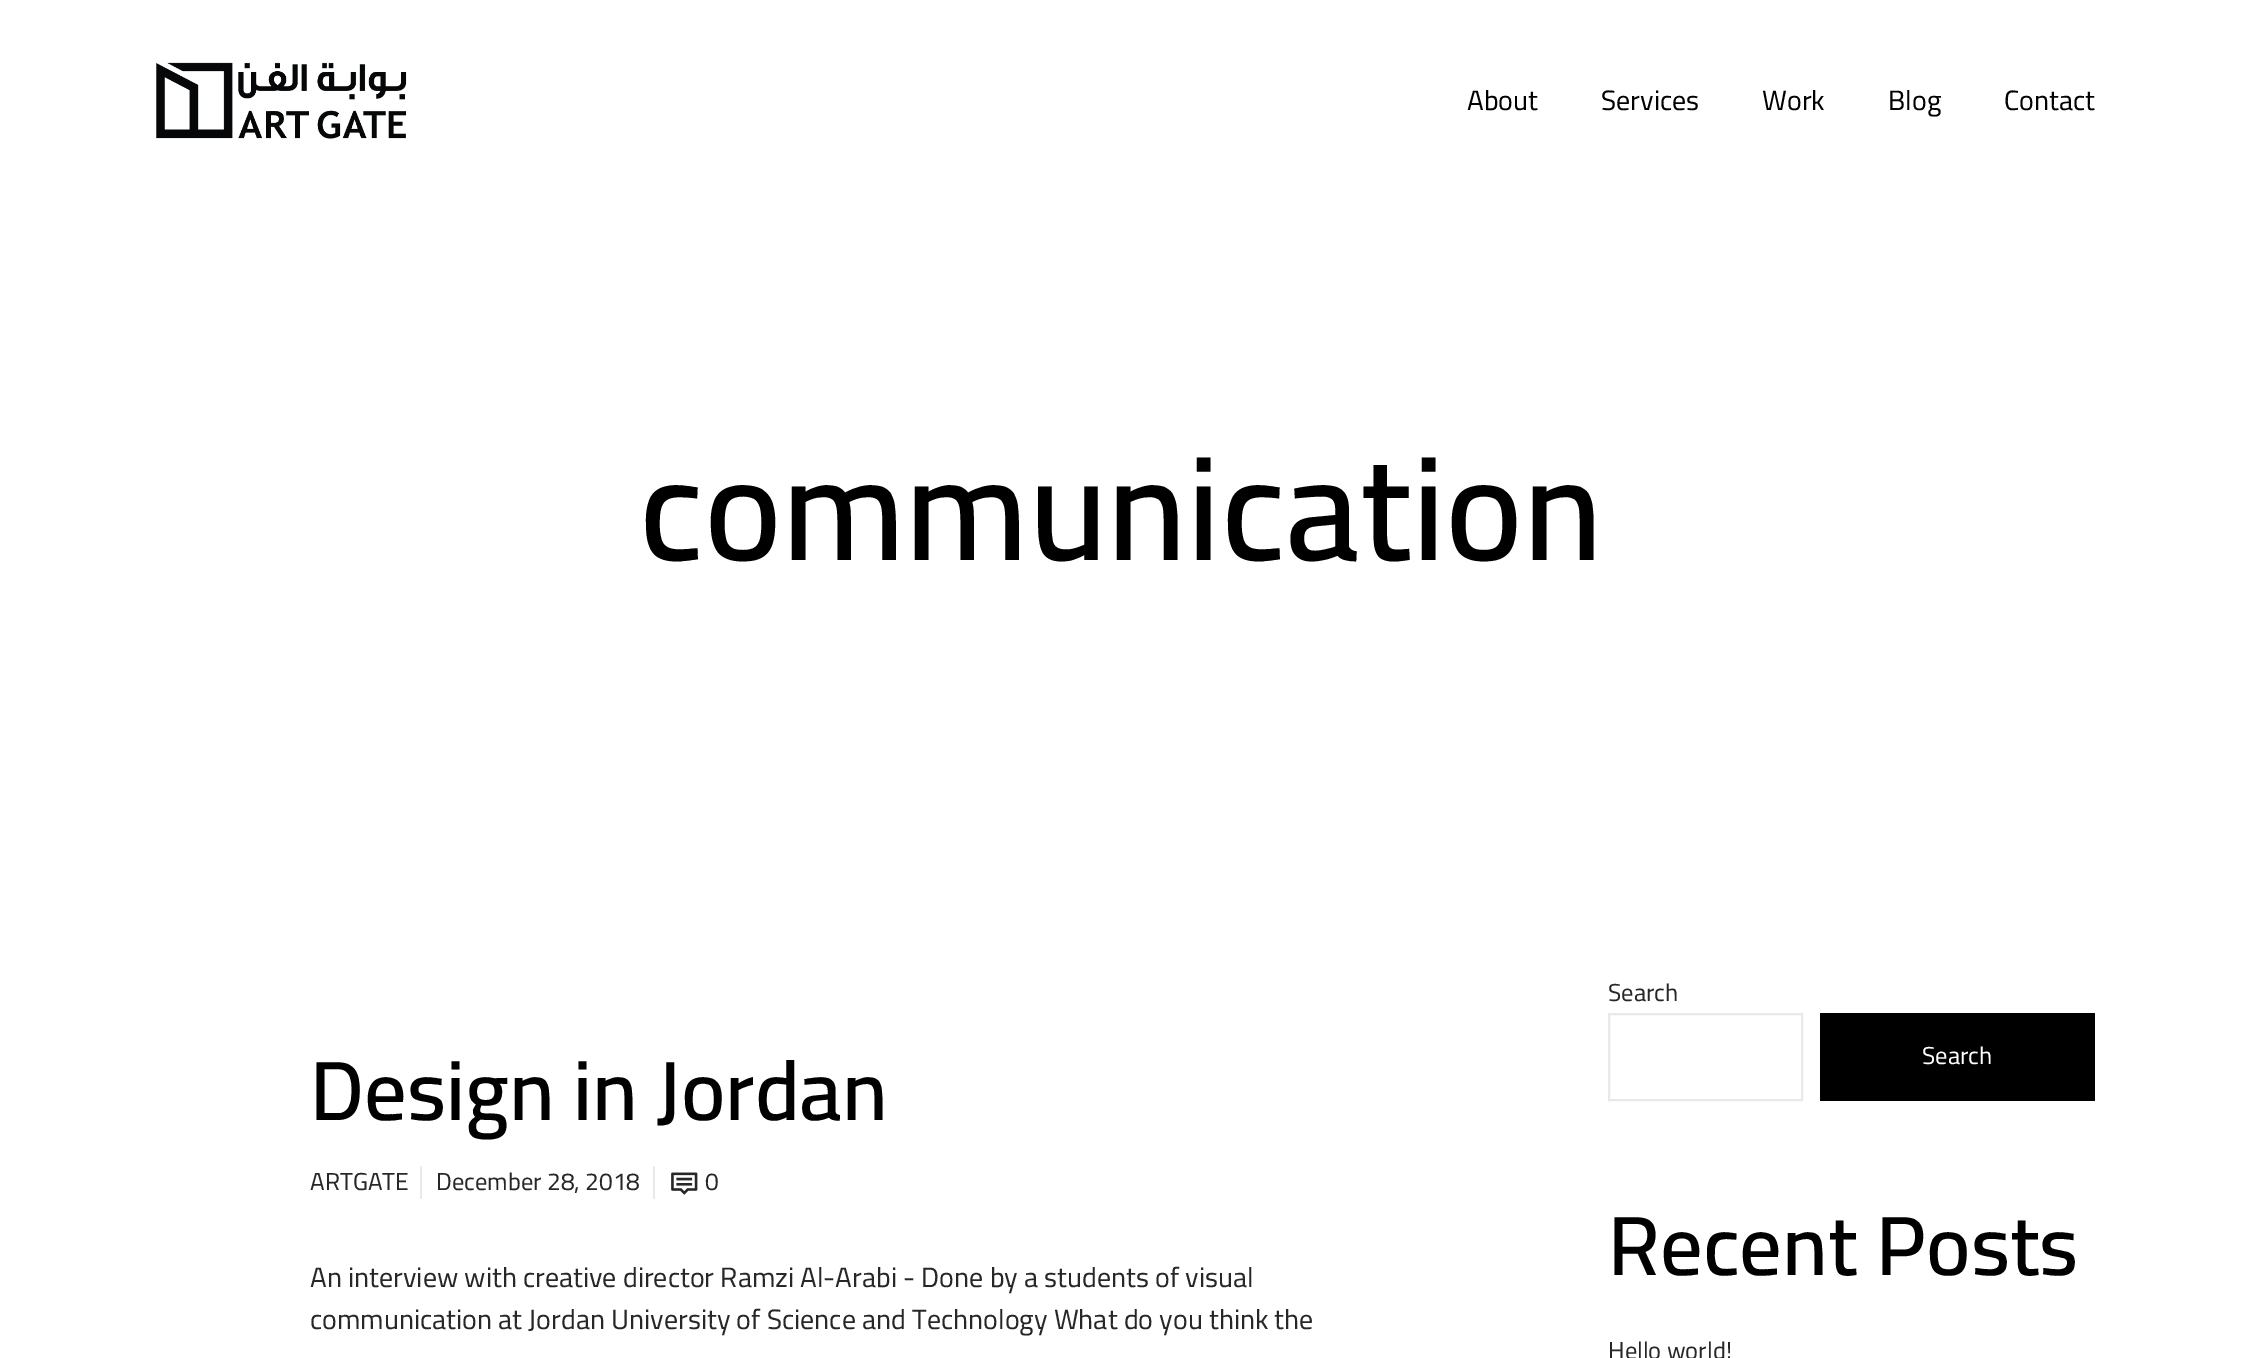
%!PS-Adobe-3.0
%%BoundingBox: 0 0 2241 1358
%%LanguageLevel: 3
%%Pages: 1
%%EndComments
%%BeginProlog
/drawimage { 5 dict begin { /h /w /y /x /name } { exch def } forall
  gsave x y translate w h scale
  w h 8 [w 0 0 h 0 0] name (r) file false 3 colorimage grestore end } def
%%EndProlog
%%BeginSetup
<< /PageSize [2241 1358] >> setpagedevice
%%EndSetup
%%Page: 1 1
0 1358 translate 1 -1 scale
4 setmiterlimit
1 setgray
0 0 2241 1358 rectfill
(images/1.raw) 156 62 251 77 drawimage
0.914 setgray
420 1166 2 33 rectfill
653 1166 2 33 rectfill
(images/2.raw) 671 1172 27 23 drawimage
2 setlinewidth
1609 1014 193 86 rectstroke
0 setgray
1820 1013 275 88 rectfill
/Cairo-Regular [28 0 0 -28 0 0] selectfont
1467 110 moveto (About) show
1601 110 moveto (Services) show
1762 110 moveto (Work) show
1888 110 moveto (Blog) show
2004 110 moveto (Contact) show
/Cairo-SemiBold [147 0 0 -147 0 0] selectfont
639 560 moveto (communication) show
/Cairo-SemiBold [84 0 0 -84 0 0] selectfont
310 1120 moveto (Design in Jordan) show
/Cairo-Regular [24.5 0 0 -24.5 0 0] selectfont
0.153 setgray
310 1190 moveto (ARTGATE) show
436 1190 moveto (December 28, 2018) show
705 1190 moveto (0) show
/Cairo-Regular [28 0 0 -28 0 0] selectfont
310 1287 moveto (An interview with creative director Ramzi Al-Arabi - Done by a students of visual) show
310 1329 moveto (communication at Jordan University of Science and Technology What do you think the) show
/Cairo-Regular [24.5 0 0 -24.5 0 0] selectfont
1608 1001 moveto (Search) show
1 setgray
1922 1064 moveto (Search) show
/Cairo-SemiBold [84 0 0 -84 0 0] selectfont
0 setgray
1608 1275 moveto (Recent Posts) show
/Cairo-Regular [24.5 0 0 -24.5 0 0] selectfont
0.153 setgray
1608 1359 moveto (Hello world!) show
showpage
%%EOF
